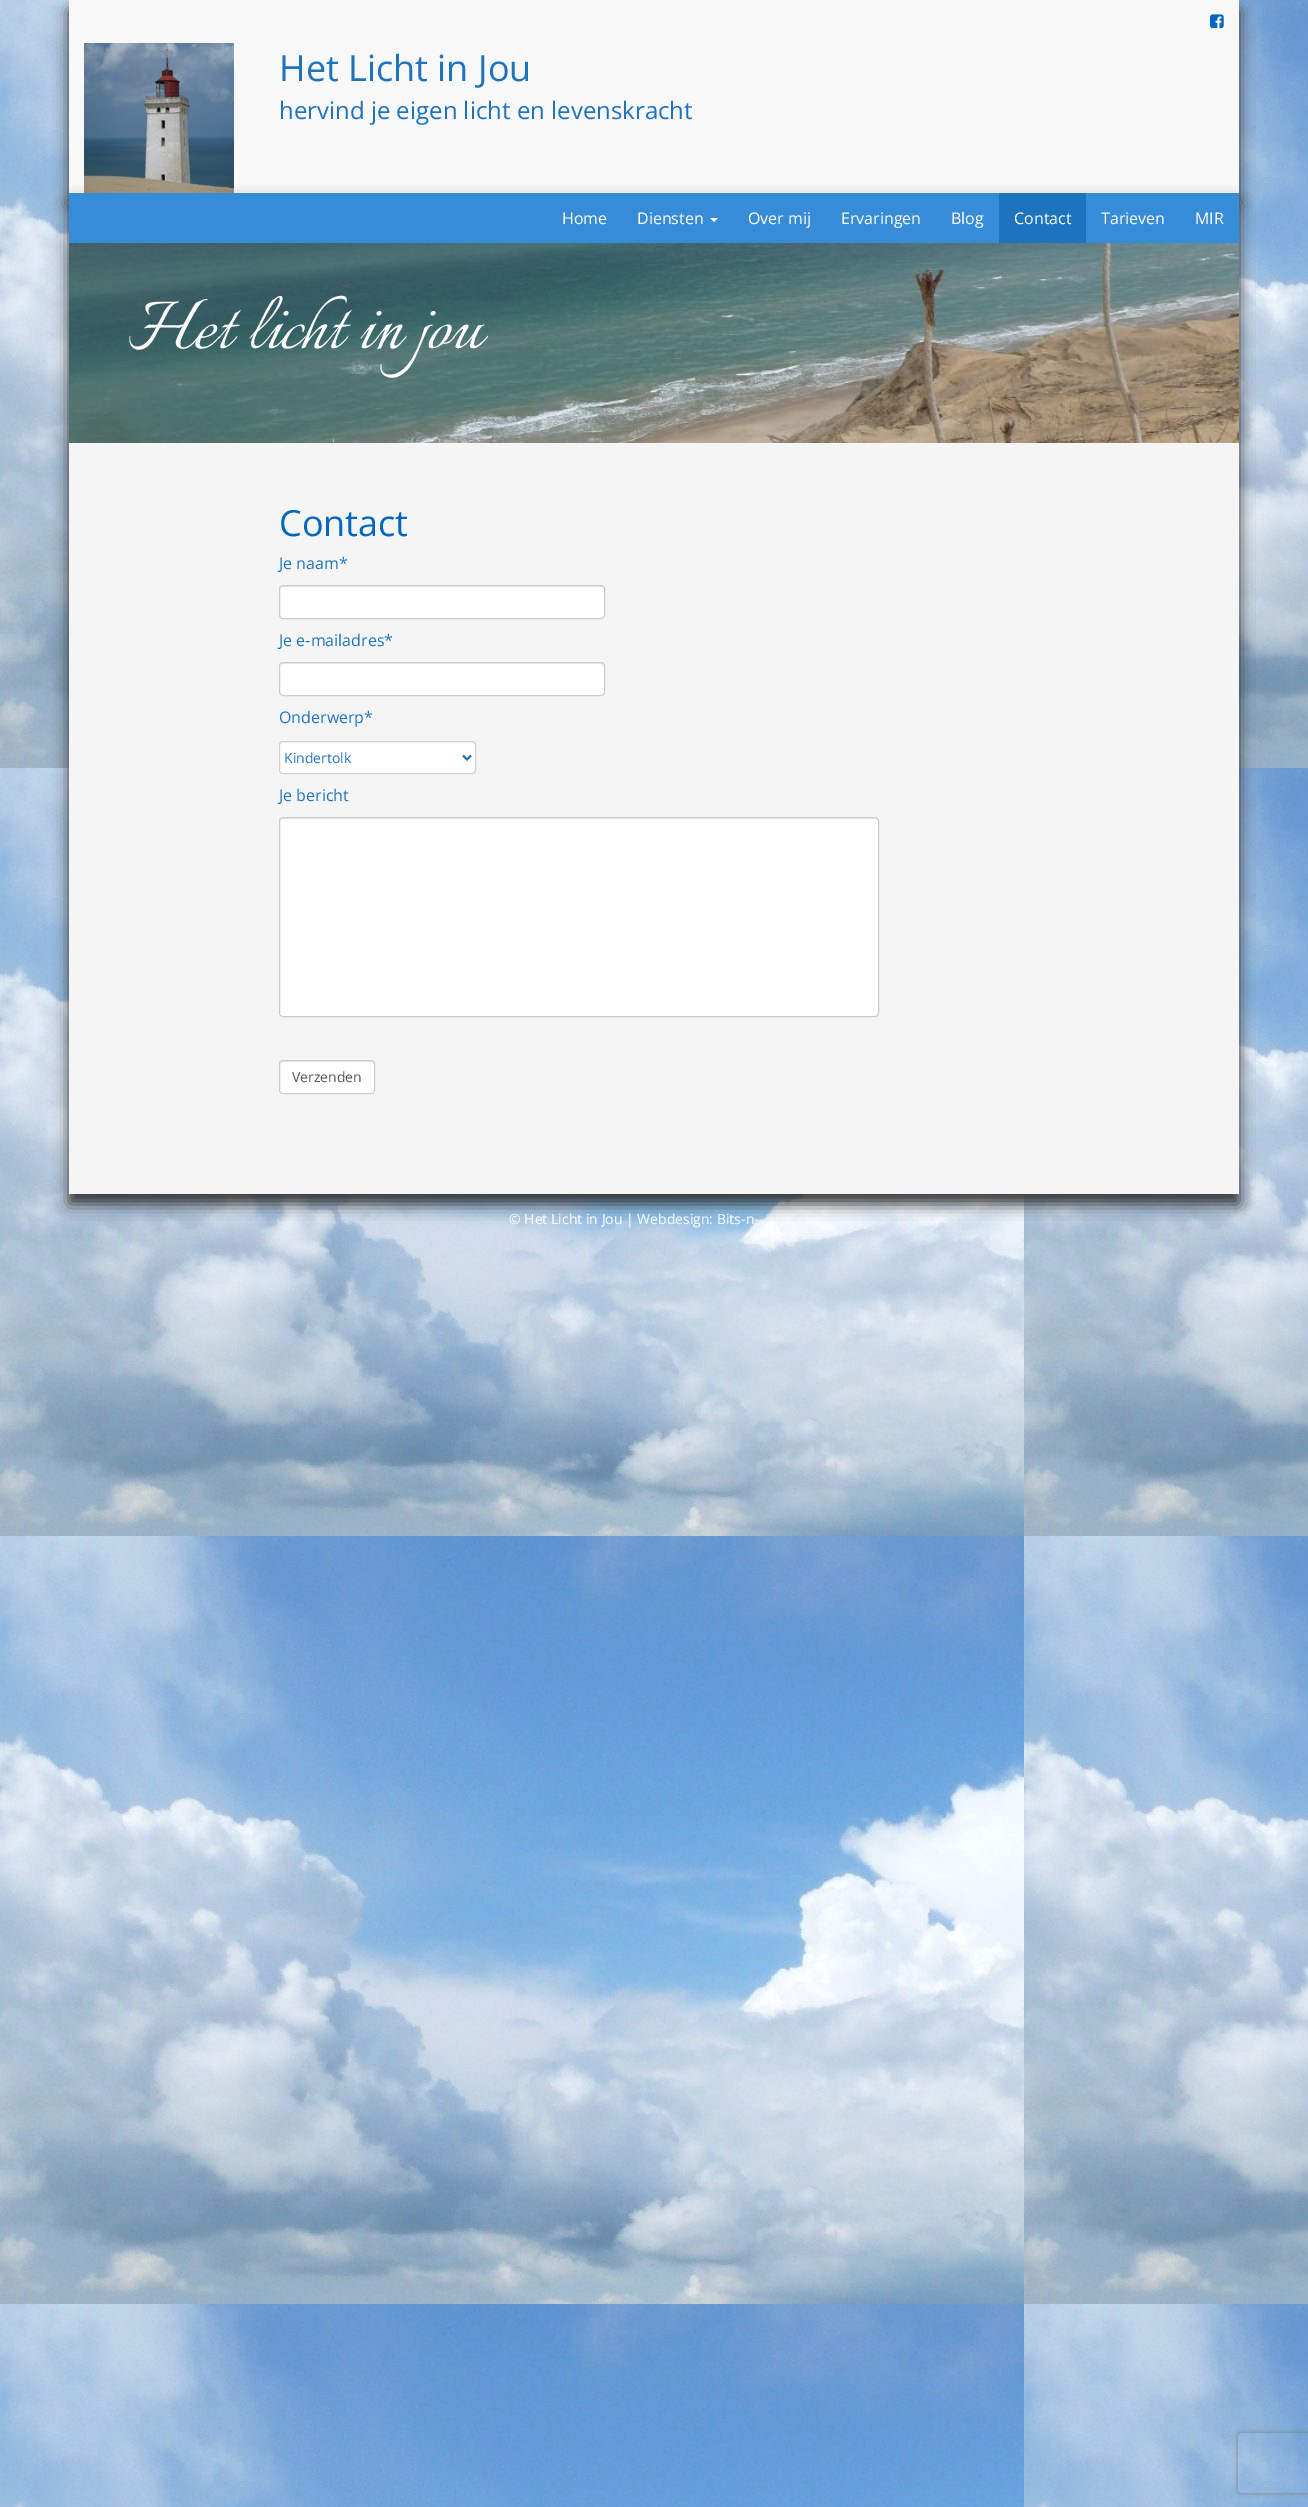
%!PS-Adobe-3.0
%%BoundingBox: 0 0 1308 2507
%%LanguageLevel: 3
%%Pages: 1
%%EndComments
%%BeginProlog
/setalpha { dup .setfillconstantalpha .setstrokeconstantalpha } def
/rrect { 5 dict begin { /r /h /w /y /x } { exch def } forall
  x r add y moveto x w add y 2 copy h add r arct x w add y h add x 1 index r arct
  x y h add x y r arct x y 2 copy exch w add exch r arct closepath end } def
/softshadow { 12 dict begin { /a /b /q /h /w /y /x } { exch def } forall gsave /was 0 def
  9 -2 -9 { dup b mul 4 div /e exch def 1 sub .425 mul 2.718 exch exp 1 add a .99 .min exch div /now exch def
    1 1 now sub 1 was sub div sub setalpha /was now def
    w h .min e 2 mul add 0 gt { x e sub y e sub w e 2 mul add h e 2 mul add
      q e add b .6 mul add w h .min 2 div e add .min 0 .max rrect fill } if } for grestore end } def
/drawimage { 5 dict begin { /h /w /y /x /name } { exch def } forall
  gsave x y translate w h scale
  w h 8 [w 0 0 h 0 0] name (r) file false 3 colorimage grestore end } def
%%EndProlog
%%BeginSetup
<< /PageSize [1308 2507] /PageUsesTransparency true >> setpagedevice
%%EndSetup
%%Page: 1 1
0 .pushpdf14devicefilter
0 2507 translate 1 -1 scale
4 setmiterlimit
1 setgray
0 0 1308 2507 rectfill
(images/1.raw) 0 0 1308 2507 drawimage
0.196 setgray
69 10 1170 193 0 7.5 1 softshadow
0.973 setgray
69 0 1170 193 rectfill
(images/2.raw) 1210 14 14 15 drawimage
0.196 setgray
69 203 1170 1001 0 7.5 1 softshadow
(images/3.raw) 84 43 150 150 drawimage
0.961 setgray
69 443 1170 751 rectfill
0.216 0.549 0.843 setrgbcolor
69 193 1170 50 rectfill
1 setgray
newpath 710 218 moveto 718 218 lineto 714 222 lineto closepath fill
0.118 0.451 0.745 setrgbcolor
999 193 87 50 rectfill
(images/4.raw) 69 243 1170 200 drawimage
1 setgray
279 585 326 34 4 rrect fill
0.925 setgray
newpath 283 587 moveto 601 587 lineto 603 587 604 588 604 590 curveto 604 588 603 586 601 586 curveto 283 586 lineto 281 586 280 588 280 590 curveto 280 588 281 587 283 587 curveto closepath fill
0.8 setgray
279.5 585.5 325 33 3.5 rrect stroke
1 setgray
279 662 326 34 4 rrect fill
0.925 setgray
newpath 283 664 moveto 601 664 lineto 603 664 604 665 604 667 curveto 604 665 603 663 601 663 curveto 283 663 lineto 281 663 280 665 280 667 curveto 280 665 281 664 283 664 curveto closepath fill
0.8 setgray
279.5 662.5 325 33 3.5 rrect stroke
1 setgray
279.5 741.5 196 32 3.5 rrect gsave fill grestore
0.816 setgray
stroke
0.118 0.451 0.745 setrgbcolor
2 setlinewidth
newpath 463 755.5 moveto 467 759.5 lineto 471 755.5 lineto stroke
1 setgray
279 817 600 200 4 rrect fill
0.925 setgray
newpath 283 819 moveto 875 819 lineto 877 819 878 820 878 822 curveto 878 821 lineto 878 819 877 818 875 818 curveto 283 818 lineto 281 818 280 819 280 821 curveto 280 822 lineto 280 820 281 819 283 819 curveto closepath fill
0.8 setgray
1 setlinewidth
279.5 817.5 599 199 3.5 rrect stroke
1 setgray
279 1060 96 34 4 rrect fill
0.925 setgray
newpath 283 1062 moveto 371 1062 lineto 373 1062 374 1063 374 1065 curveto 374 1057 360 1061 356 1061 curveto 298 1061 lineto 294 1061 280 1057 280 1065 curveto 280 1063 281 1062 283 1062 curveto closepath fill
0.8 setgray
279.5 1060.5 95 33 3.5 rrect stroke
gsave
newpath 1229 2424 moveto 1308 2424 lineto 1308 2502 lineto 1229 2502 lineto closepath 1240 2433 moveto 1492 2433 lineto 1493 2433 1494 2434 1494 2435 curveto 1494 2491 lineto 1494 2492 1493 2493 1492 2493 curveto 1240 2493 lineto 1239 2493 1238 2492 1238 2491 curveto 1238 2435 lineto 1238 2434 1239 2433 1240 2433 curveto closepath eoclip newpath
0.502 setgray
1238 2433 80 60 2 2.5 1 softshadow
grestore
/OpenSans-Regular [36 0 0 -36 0 0] selectfont
0.118 0.451 0.745 setrgbcolor
279 81 moveto (Het Licht in Jou) show
/OpenSans-Regular [24 0 0 -24 0 0] selectfont
279 119 moveto (hervind je eigen licht en levenskracht) show
/OpenSans-Regular [16 0 0 -16 0 0] selectfont
1 setgray
562 224 moveto (Home) show
637 224 moveto (Diensten) show
748 224 moveto (Over mij) show
841 224 moveto (Ervaringen) show
951 224 moveto (Blog) show
1014 224 moveto (Contact) show
1101 224 moveto (Tarieven) show
1195 224 moveto (MIR) show
/Italianno-Regular [85 0 0 -85 0 0] selectfont
129 348 moveto (Het licht in jou) show
/OpenSans-Regular [36 0 0 -36 0 0] selectfont
0 0.4 0.749 setrgbcolor
279 536 moveto (Contact) show
/OpenSans-Regular [16 0 0 -16 0 0] selectfont
0.118 0.451 0.745 setrgbcolor
279 569 moveto (Je naam*) show
279 646 moveto (Je e-mailadres*) show
279 723 moveto (Onderwerp*) show
/OpenSans-Regular [14 0 0 -14 0 0] selectfont
284 763 moveto (Kindertolk) show
/OpenSans-Regular [16 0 0 -16 0 0] selectfont
279 801 moveto (Je bericht) show
/OpenSans-Regular [14 0 0 -14 0 0] selectfont
0.333 setgray
292 1082 moveto (Verzenden) show
1 setgray
509 1224 moveto (© Het Licht in Jou | Webdesign: Bits-n-) show
.poppdf14devicefilter showpage
%%EOF
